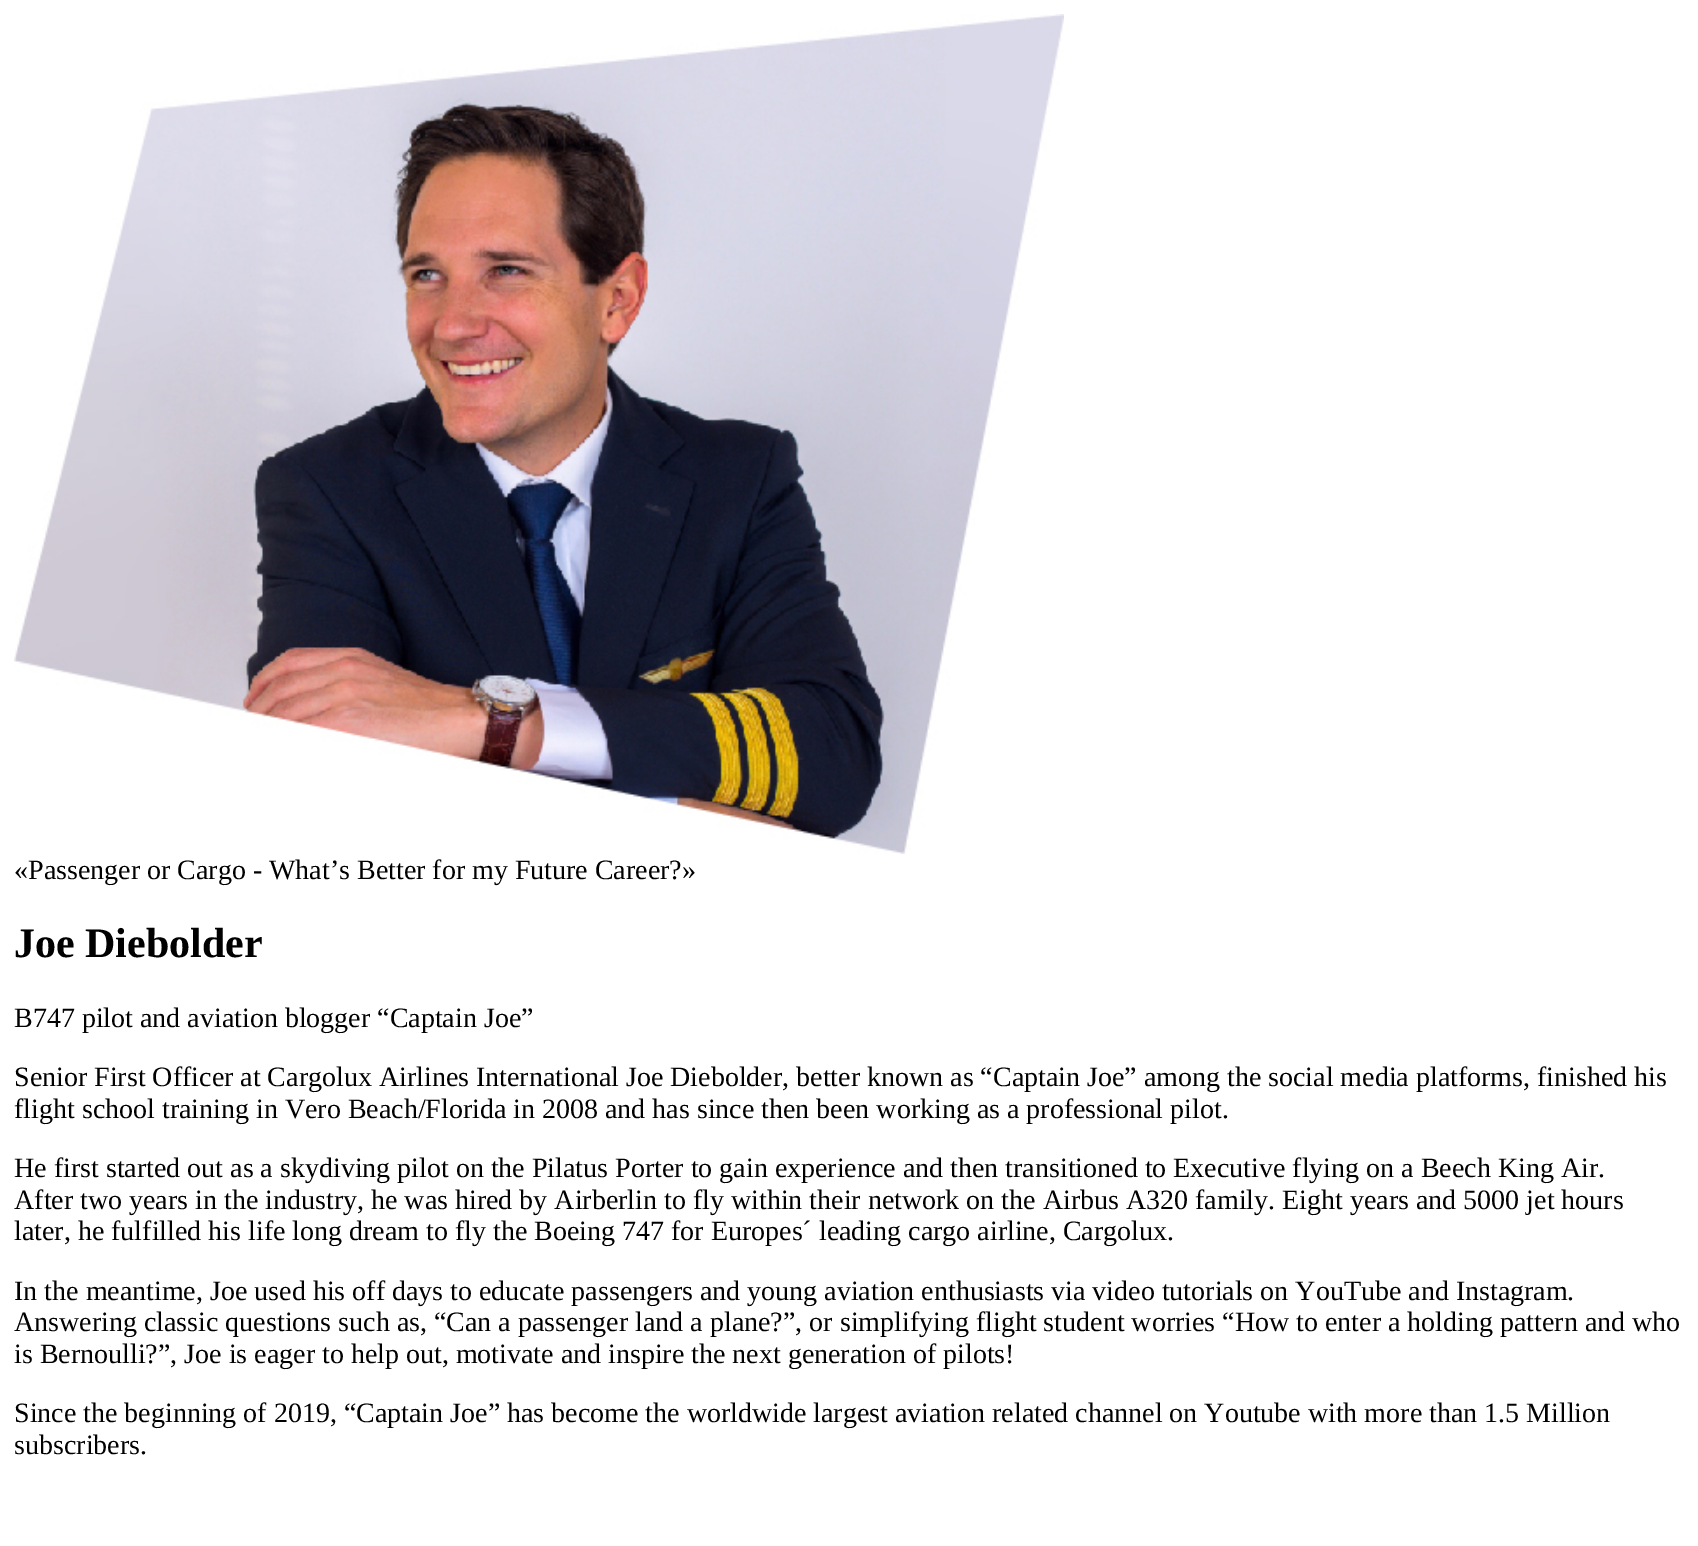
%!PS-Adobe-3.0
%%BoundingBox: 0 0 1698 1546
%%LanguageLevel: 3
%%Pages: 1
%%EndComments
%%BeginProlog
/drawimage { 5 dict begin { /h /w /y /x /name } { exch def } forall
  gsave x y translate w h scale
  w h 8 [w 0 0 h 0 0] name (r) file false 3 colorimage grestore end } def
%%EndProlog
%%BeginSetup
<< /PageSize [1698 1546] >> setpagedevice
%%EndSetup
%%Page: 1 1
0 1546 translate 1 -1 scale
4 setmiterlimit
1 setgray
0 0 1698 1546 rectfill
(images/1.raw) 14 14 1050 840 drawimage
/LiberationSerif-Regular [28 0 0 -28 0 0] selectfont
0 setgray
14 879 moveto («Passenger or Cargo - What’s Better for my Future Career?») show
/LiberationSerif-Bold [42 0 0 -42 0 0] selectfont
14 957 moveto (Joe Diebolder) show
/LiberationSerif-Regular [28 0 0 -28 0 0] selectfont
14 1027 moveto (B747 pilot and aviation blogger “Captain Joe”) show
14 1086 moveto (Senior First Officer at Cargolux Airlines International Joe Diebolder, better known as “Captain Joe” among the social media platforms, finished his) show
14 1118 moveto (flight school training in Vero Beach/Florida in 2008 and has since then been working as a professional pilot.) show
14 1177 moveto (He first started out as a skydiving pilot on the Pilatus Porter to gain experience and then transitioned to Executive flying on a Beech King Air.) show
14 1209 moveto (After two years in the industry, he was hired by Airberlin to fly within their network on the Airbus A320 family. Eight years and 5000 jet hours) show
14 1240 moveto (later, he fulfilled his life long dream to fly the Boeing 747 for Europes´ leading cargo airline, Cargolux.) show
14 1300 moveto (In the meantime, Joe used his off days to educate passengers and young aviation enthusiasts via video tutorials on YouTube and Instagram.) show
14 1331 moveto (Answering classic questions such as, “Can a passenger land a plane?”, or simplifying flight student worries “How to enter a holding pattern and who) show
14 1363 moveto (is Bernoulli?”, Joe is eager to help out, motivate and inspire the next generation of pilots!) show
14 1422 moveto (Since the beginning of 2019, “Captain Joe” has become the worldwide largest aviation related channel on Youtube with more than 1.5 Million) show
14 1454 moveto (subscribers.) show
showpage
%%EOF
